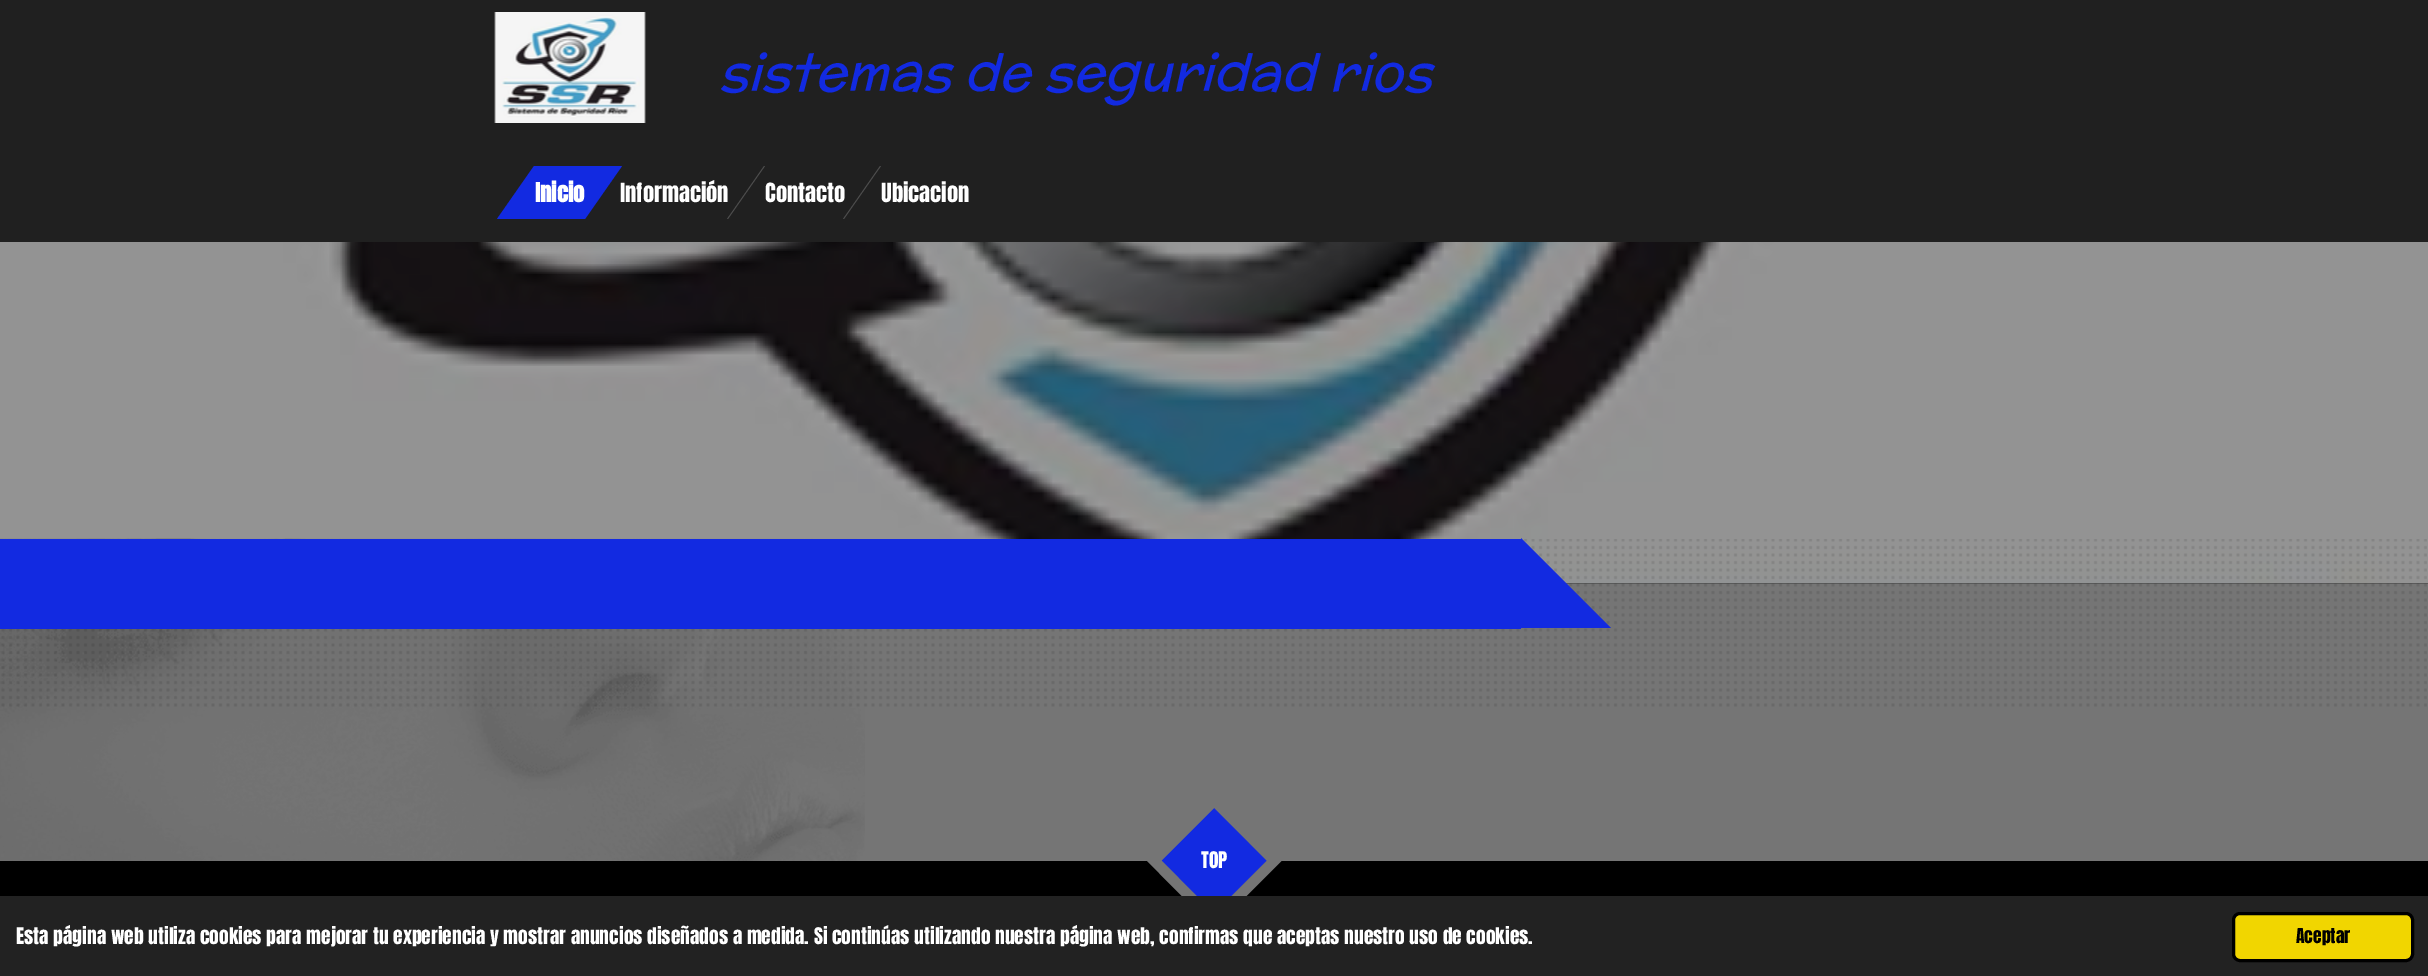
%!PS-Adobe-3.0
%%BoundingBox: 0 0 2428 976
%%LanguageLevel: 3
%%Pages: 1
%%EndComments
%%BeginProlog
/rrect { 5 dict begin { /r /h /w /y /x } { exch def } forall
  x r add y moveto x w add y 2 copy h add r arct x w add y h add x 1 index r arct
  x y h add x y r arct x y 2 copy exch w add exch r arct closepath end } def
/drawimage { 5 dict begin { /h /w /y /x /name } { exch def } forall
  gsave x y translate w h scale
  w h 8 [w 0 0 h 0 0] name (r) file false 3 colorimage grestore end } def
%%EndProlog
%%BeginSetup
<< /PageSize [2428 976] >> setpagedevice
%%EndSetup
%%Page: 1 1
0 976 translate 1 -1 scale
4 setmiterlimit
0.459 setgray
0 0 2428 976 rectfill
0.275 setgray
1566 583 862 1 rectfill
0.125 setgray
0 0 2428 242 rectfill
(images/1.raw) 494 12 152 111 drawimage
0.302 setgray
newpath 764 166 moveto 765 166 lineto 728 219 lineto 727 219 lineto closepath fill
newpath 880 166 moveto 881 166 lineto 844 219 lineto 843 219 lineto closepath fill
(images/2.raw) 0 242 2428 342 drawimage
(images/3.raw) 1 539 2426 168 drawimage
(images/4.raw) 0 538 865 323 drawimage
0.071 0.165 0.882 setrgbcolor
0 539 1521 90 rectfill
newpath 1521 628 moveto 1521 538 lineto 1611 628 lineto closepath fill
0 setgray
0 861 2428 35 rectfill
0.071 0.165 0.882 setrgbcolor
newpath 1214 808 moveto 1267 861 lineto 1214 914 lineto 1161 861 lineto closepath fill
0.459 setgray
10.5 setlinewidth
newpath 1214.5 800 moveto 1274.5 860.5 lineto 1214 921 lineto 1154 860.5 lineto closepath stroke
0.133 setgray
0 896 2428 80 rectfill
0.945 0.839 0 setrgbcolor
2233.5 913.5 179 47 6.5 rrect gsave fill grestore
0 setgray
3 setlinewidth
stroke
/McLaren-Italic [52.5 0 0 -52.5 0 0] selectfont
0.071 0.165 0.882 setrgbcolor
719 90 moveto (sistemas de seguridad rios) show
/Anton-Regular [22.5 0 0 -22.5 0 0] selectfont
1 setgray
620 202 moveto (Información) show
0.071 0.165 0.882 setrgbcolor
newpath 534 166 moveto 622 166 lineto 585 219 lineto 497 219 lineto closepath fill
/Anton-Bold [22.5 0 0 -22.5 0 0] selectfont
1 setgray
535 202 moveto (Inicio) show
/Anton-Regular [22.5 0 0 -22.5 0 0] selectfont
765 202 moveto (Contacto) show
881 202 moveto (Ubicacion) show
/Anton-Regular [19.5 0 0 -19.5 0 0] selectfont
1201 868 moveto (TOP) show
16 944 moveto (Esta página web utiliza cookies para mejorar tu experiencia y mostrar anuncios diseñados a medida. Si continúas utilizando nuestra página web, confirmas que aceptas nuestro uso de cookies.) show
/Anton-Regular [17.5 0 0 -17.5 0 0] selectfont
0 setgray
2296 943 moveto (Aceptar) show
showpage
%%EOF
